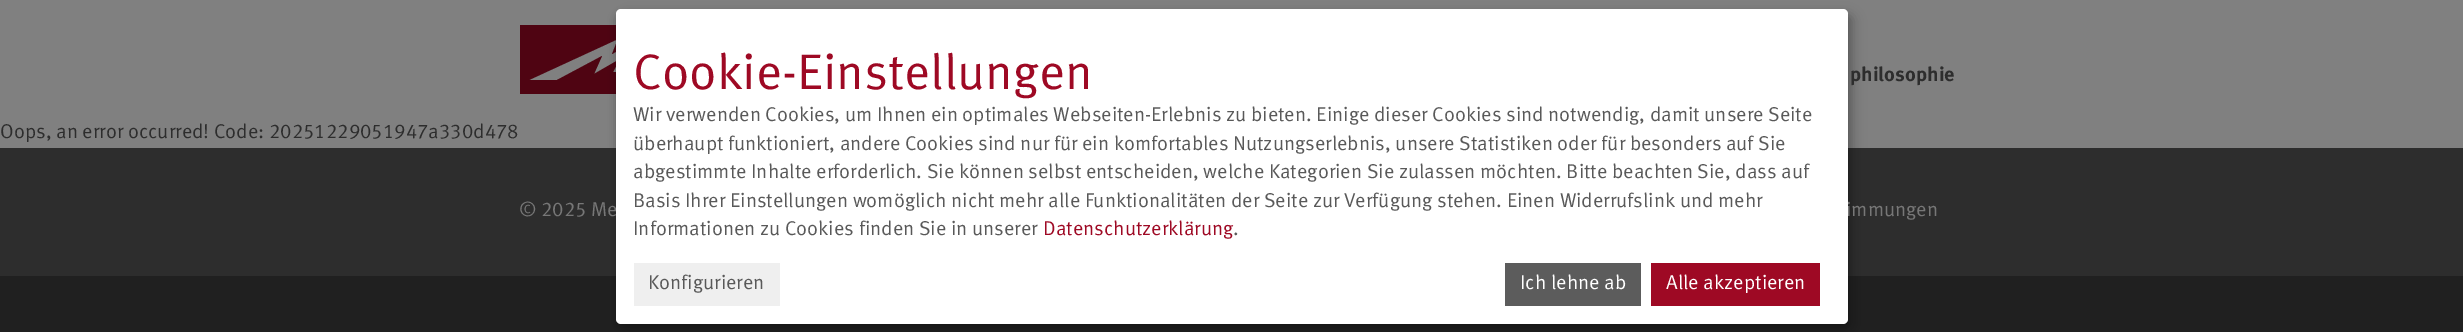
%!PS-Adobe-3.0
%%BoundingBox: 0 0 2463 332
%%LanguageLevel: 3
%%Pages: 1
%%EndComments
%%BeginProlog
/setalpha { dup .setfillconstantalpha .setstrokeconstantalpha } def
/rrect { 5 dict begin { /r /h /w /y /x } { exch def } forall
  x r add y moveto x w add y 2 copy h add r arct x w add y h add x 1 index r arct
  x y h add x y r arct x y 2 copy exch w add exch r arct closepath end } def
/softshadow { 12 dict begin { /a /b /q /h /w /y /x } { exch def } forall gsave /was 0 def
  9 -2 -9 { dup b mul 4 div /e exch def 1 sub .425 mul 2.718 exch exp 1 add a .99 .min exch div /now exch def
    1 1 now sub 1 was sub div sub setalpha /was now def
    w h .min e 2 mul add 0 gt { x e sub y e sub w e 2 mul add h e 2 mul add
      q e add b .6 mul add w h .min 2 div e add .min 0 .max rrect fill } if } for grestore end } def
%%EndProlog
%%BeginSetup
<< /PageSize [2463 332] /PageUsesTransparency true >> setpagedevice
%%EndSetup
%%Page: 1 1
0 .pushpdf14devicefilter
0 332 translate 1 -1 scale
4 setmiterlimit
0.125 setgray
0 0 2463 332 rectfill
0.502 setgray
0 0 2463 148 rectfill
0.31 0.016 0.071 setrgbcolor
newpath 520 94 moveto 739 94 lineto 739 25 lineto 520 25 lineto closepath 618 39 moveto 612 54 lineto 639 39 lineto 626 68 lineto 635 68 lineto 644 57 lineto 665 57 lineto 649 68 lineto 667 68 lineto 672 61 lineto 667 61 lineto 670 57 lineto 675 57 lineto 686 40 lineto 681 57 lineto 727 57 lineto 698 76 lineto 724 76 lineto 722 80 lineto 662 80 lineto 707 61 lineto 680 61 lineto 676 72 lineto 613 72 lineto 620 59 lineto 594 74 lineto 602 56 lineto 557 80 lineto 529 80 lineto closepath eofill
0.176 setgray
0 148 2463 128 rectfill
0 setgray
623 15 1231 315 5 6 0.19 softshadow
616 14 1232 315 5 4 0.2 softshadow
/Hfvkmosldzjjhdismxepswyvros-Bold [20 0 0 -20 0 0] selectfont
0.176 setgray
1850 81 moveto (philosophie) show
/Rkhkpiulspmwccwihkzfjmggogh-Regular [20 0 0 -20 0 0] selectfont
0 138 moveto (Oops, an error occurred! Code: 20251229051947a330d478) show
0.467 setgray
519 216 moveto (© 2025 Me) show
1846 216 moveto (immungen) show
1 setgray
616 9 1232 315 5 rrect fill
0.62 0.035 0.141 setrgbcolor
1651 263 169 43 rectfill
1 setgray
1666 289 moveto (Alle akzeptieren) show
0.361 setgray
1505 263 136 43 rectfill
1 setgray
1520 289 moveto (Ich lehne ab) show
0.937 setgray
634 263 146 43 rectfill
0.349 setgray
648 289 moveto (Konfigurieren) show
1233 235 moveto (.) show
0.62 0.035 0.141 setrgbcolor
1043 235 moveto (Datenschutzerklärung) show
0.349 setgray
633 235 moveto (Informationen zu Cookies finden Sie in unserer) show
633 207 moveto (Basis Ihrer Einstellungen womöglich nicht mehr alle Funktionalitäten der Seite zur Verfügung stehen. Einen Widerrufslink und mehr) show
633 178 moveto (abgestimmte Inhalte erforderlich. Sie können selbst entscheiden, welche Kategorien Sie zulassen möchten. Bitte beachten Sie, dass auf) show
633 150 moveto (überhaupt funktioniert, andere Cookies sind nur für ein komfortables Nutzungserlebnis, unsere Statistiken oder für besonders auf Sie) show
633 121 moveto (Wir verwenden Cookies, um Ihnen ein optimales Webseiten-Erlebnis zu bieten. Einige dieser Cookies sind notwendig, damit unsere Seite) show
/Rkhkpiulspmwccwihkzfjmggogh-Regular [50 0 0 -50 0 0] selectfont
0.62 0.035 0.141 setrgbcolor
633 89 moveto (Cookie-Einstellungen) show
.poppdf14devicefilter showpage
%%EOF
